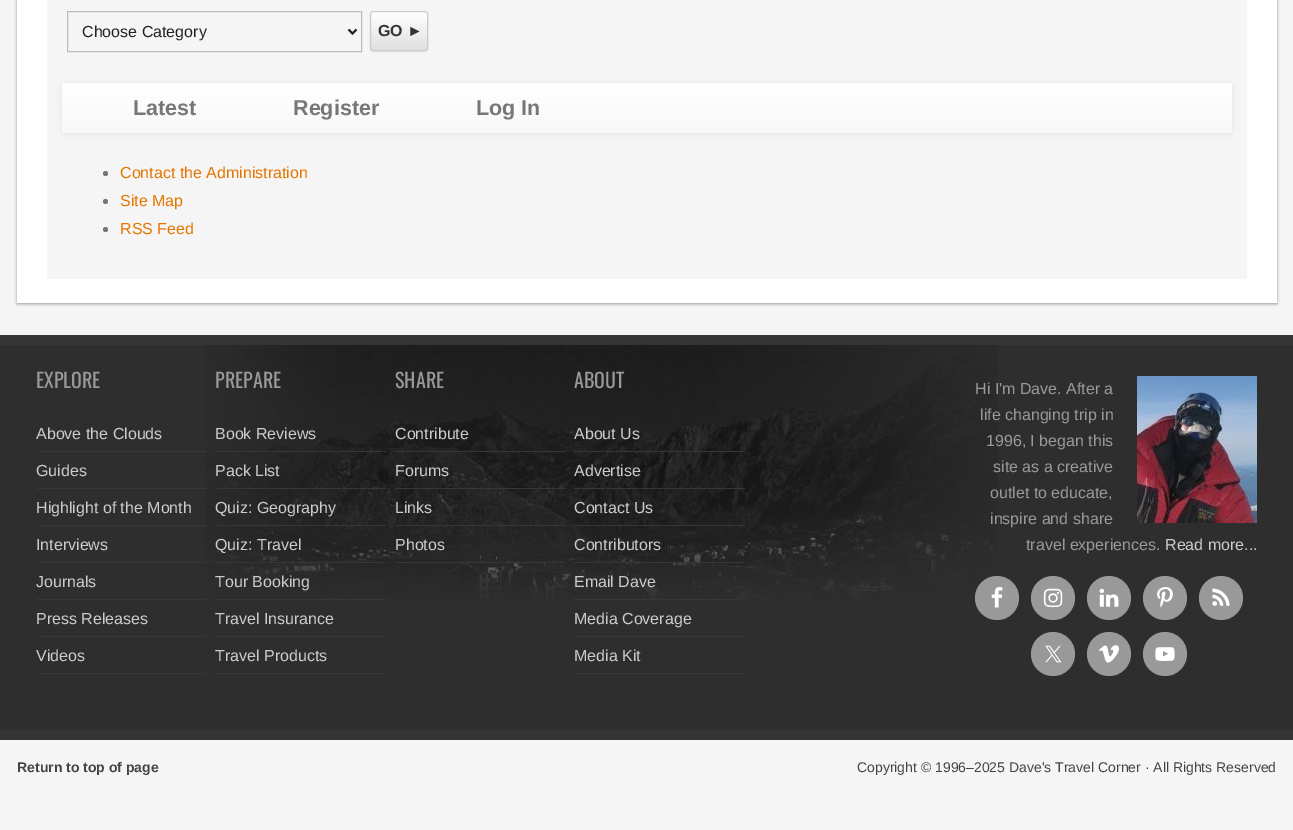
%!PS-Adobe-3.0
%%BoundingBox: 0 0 1293 830
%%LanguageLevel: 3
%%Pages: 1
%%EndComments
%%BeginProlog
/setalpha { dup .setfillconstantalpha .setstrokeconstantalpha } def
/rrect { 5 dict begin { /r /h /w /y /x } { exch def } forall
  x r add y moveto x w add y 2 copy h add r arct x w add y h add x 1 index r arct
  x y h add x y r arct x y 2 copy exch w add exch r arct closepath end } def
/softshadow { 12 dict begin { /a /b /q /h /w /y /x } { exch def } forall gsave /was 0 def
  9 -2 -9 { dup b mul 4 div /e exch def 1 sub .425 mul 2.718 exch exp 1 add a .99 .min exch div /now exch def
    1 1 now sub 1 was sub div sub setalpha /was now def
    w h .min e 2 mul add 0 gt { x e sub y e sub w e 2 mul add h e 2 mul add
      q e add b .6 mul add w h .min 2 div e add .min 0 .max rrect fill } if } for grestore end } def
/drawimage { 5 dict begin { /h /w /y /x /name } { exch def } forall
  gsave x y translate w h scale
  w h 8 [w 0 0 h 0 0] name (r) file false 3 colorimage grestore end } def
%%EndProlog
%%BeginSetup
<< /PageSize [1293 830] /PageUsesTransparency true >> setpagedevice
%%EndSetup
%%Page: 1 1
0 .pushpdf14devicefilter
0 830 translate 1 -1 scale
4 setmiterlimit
0.961 setgray
0 0 1293 830 rectfill
0.6 setgray
17 -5 1260 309 0 1.5 1 softshadow
1 setgray
17 0 1260 303 rectfill
0.961 setgray
newpath 47 -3 moveto 1247 -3 lineto 1247 276 lineto 1247 277.5 1245.5 279 1244 279 curveto 50 279 lineto 48.5 279 47 277.5 47 276 curveto closepath fill
0.733 setgray
67.5 11.5 294 40 rectstroke
0.133 setgray
2 setlinewidth
newpath 348.5 29.5 moveto 352.5 33.5 lineto 356.5 29.5 lineto stroke
0 setgray
370 12 58 40 3 0.5 0.07 softshadow
gsave
370 11 58 40 3 rrect clip newpath
gsave newpath 370 12 moveto 428 12 lineto 428 50 lineto 370 50 lineto closepath clip newpath
<< /ShadingType 2 /ColorSpace /DeviceRGB /Coords [399 12 399 50] /Extend [true true] /Function << /FunctionType 2 /Domain [0 1] /C0 [1 1 1] /C1 [0.878 0.878 0.878] /N 1 >> >> shfill grestore
grestore
0.8 setgray
1 setlinewidth
370.5 11.5 57 39 2.5 rrect stroke
0 setgray
62 84 1170 50 4 2.5 0.07 softshadow
gsave 62 83 1170 50 4 rrect clip newpath
<< /ShadingType 2 /ColorSpace /DeviceRGB /Coords [647 83 647 133] /Extend [true true] /Function << /FunctionType 2 /Domain [0 1] /C0 [1 1 1] /C1 [0.973 0.973 0.973] /N 1 >> >> shfill grestore
0.467 setgray
newpath 105.5 173.5 2.5 0 360 arc closepath fill
newpath 105.5 201.5 2.5 0 360 arc closepath fill
newpath 105.5 229.5 2.5 0 360 arc closepath fill
0.18 setgray
0 345 1293 385 rectfill
(images/1.raw) 205 345 793 256 drawimage
0.204 setgray
0 335 1293 10 rectfill
0 730 1293 10 rectfill
0.216 setgray
36 451 171 1 rectfill
36 488 171 1 rectfill
36 525 171 1 rectfill
36 562 171 1 rectfill
36 599 171 1 rectfill
36 636 171 1 rectfill
36 673 171 1 rectfill
215 451 171 1 rectfill
215 488 171 1 rectfill
215 525 171 1 rectfill
215 562 171 1 rectfill
215 599 171 1 rectfill
215 636 171 1 rectfill
215 673 171 1 rectfill
395 451 171 1 rectfill
395 488 171 1 rectfill
395 525 171 1 rectfill
395 562 171 1 rectfill
574 451 171 1 rectfill
574 488 171 1 rectfill
574 525 171 1 rectfill
574 562 171 1 rectfill
574 599 171 1 rectfill
574 636 171 1 rectfill
574 673 171 1 rectfill
(images/2.raw) 1137 376 120 147 drawimage
0.6 setgray
newpath 997 598 22 0 360 arc closepath fill
(images/3.raw) 991 587 12 21 drawimage
newpath 1053 598 22 0 360 arc closepath fill
(images/4.raw) 1043 588 20 20 drawimage
newpath 1109 598 22 0 360 arc closepath fill
(images/5.raw) 1099 588 20 19 drawimage
newpath 1165 598 22 0 360 arc closepath fill
(images/6.raw) 1157 587 16 21 drawimage
newpath 1221 598 22 0 360 arc closepath fill
(images/7.raw) 1212 588 18 18 drawimage
newpath 1053 654 22 0 360 arc closepath fill
(images/8.raw) 1045 645 17 18 drawimage
newpath 1109 654 22 0 360 arc closepath fill
(images/9.raw) 1099 645 20 18 drawimage
newpath 1165 654 22 0 360 arc closepath fill
(images/10.raw) 1155 647 20 14 drawimage
/LiberationSans-Regular [16 0 0 -16 0 0] selectfont
0.133 setgray
82 37 moveto (Choose Category) show
/LiberationSans-Bold [16 0 0 -16 0 0] selectfont
0.2 setgray
378 36 moveto (GO ►) show
/LiberationSans-Bold [21.5 0 0 -21.5 0 0] selectfont
0.467 setgray
133 115 moveto (Latest) show
293 115 moveto (Register) show
476 115 moveto (Log In) show
/LiberationSans-Regular [16 0 0 -16 0 0] selectfont
0.894 0.463 0 setrgbcolor
120 178 moveto (Contact the Administration) show
120 206 moveto (Site Map) show
120 234 moveto (RSS Feed) show
/Oswald-Regular [20 0 0 -20 0 0] selectfont
0.6 setgray
36 388 moveto (EXPLORE) show
/LiberationSans-Regular [16 0 0 -16 0 0] selectfont
0.8 setgray
36 439 moveto (Above the Clouds) show
36 476 moveto (Guides) show
36 513 moveto (Highlight of the Month) show
36 550 moveto (Interviews) show
36 587 moveto (Journals) show
36 624 moveto (Press Releases) show
36 661 moveto (Videos) show
/Oswald-Regular [20 0 0 -20 0 0] selectfont
0.6 setgray
215 388 moveto (PREPARE) show
/LiberationSans-Regular [16 0 0 -16 0 0] selectfont
0.8 setgray
215 439 moveto (Book Reviews) show
215 476 moveto (Pack List) show
215 513 moveto (Quiz: Geography) show
215 550 moveto (Quiz: Travel) show
215 587 moveto (Tour Booking) show
215 624 moveto (Travel Insurance) show
215 661 moveto (Travel Products) show
/Oswald-Regular [20 0 0 -20 0 0] selectfont
0.6 setgray
395 388 moveto (SHARE) show
/LiberationSans-Regular [16 0 0 -16 0 0] selectfont
0.8 setgray
395 439 moveto (Contribute) show
395 476 moveto (Forums) show
395 513 moveto (Links) show
395 550 moveto (Photos) show
/Oswald-Regular [20 0 0 -20 0 0] selectfont
0.6 setgray
574 388 moveto (ABOUT) show
/LiberationSans-Regular [16 0 0 -16 0 0] selectfont
0.8 setgray
574 439 moveto (About Us) show
574 476 moveto (Advertise) show
574 513 moveto (Contact Us) show
574 550 moveto (Contributors) show
574 587 moveto (Email Dave) show
574 624 moveto (Media Coverage) show
574 661 moveto (Media Kit) show
0.6 setgray
975 394 moveto (Hi I'm Dave. After a) show
980 420 moveto (life changing trip in) show
986 446 moveto (1996, I began this) show
993 472 moveto (site as a creative) show
990 498 moveto (outlet to educate,) show
990 524 moveto (inspire and share) show
1026 550 moveto (travel experiences.) show
0.8 setgray
1165 550 moveto (Read more...) show
/LiberationSans-Bold [14 0 0 -14 0 0] selectfont
0.267 setgray
17 772 moveto (Return to top of page) show
/LiberationSans-Regular [14 0 0 -14 0 0] selectfont
857 772 moveto (Copyright © 1996–2025 Dave's Travel Corner · All Rights Reserved) show
.poppdf14devicefilter showpage
%%EOF
